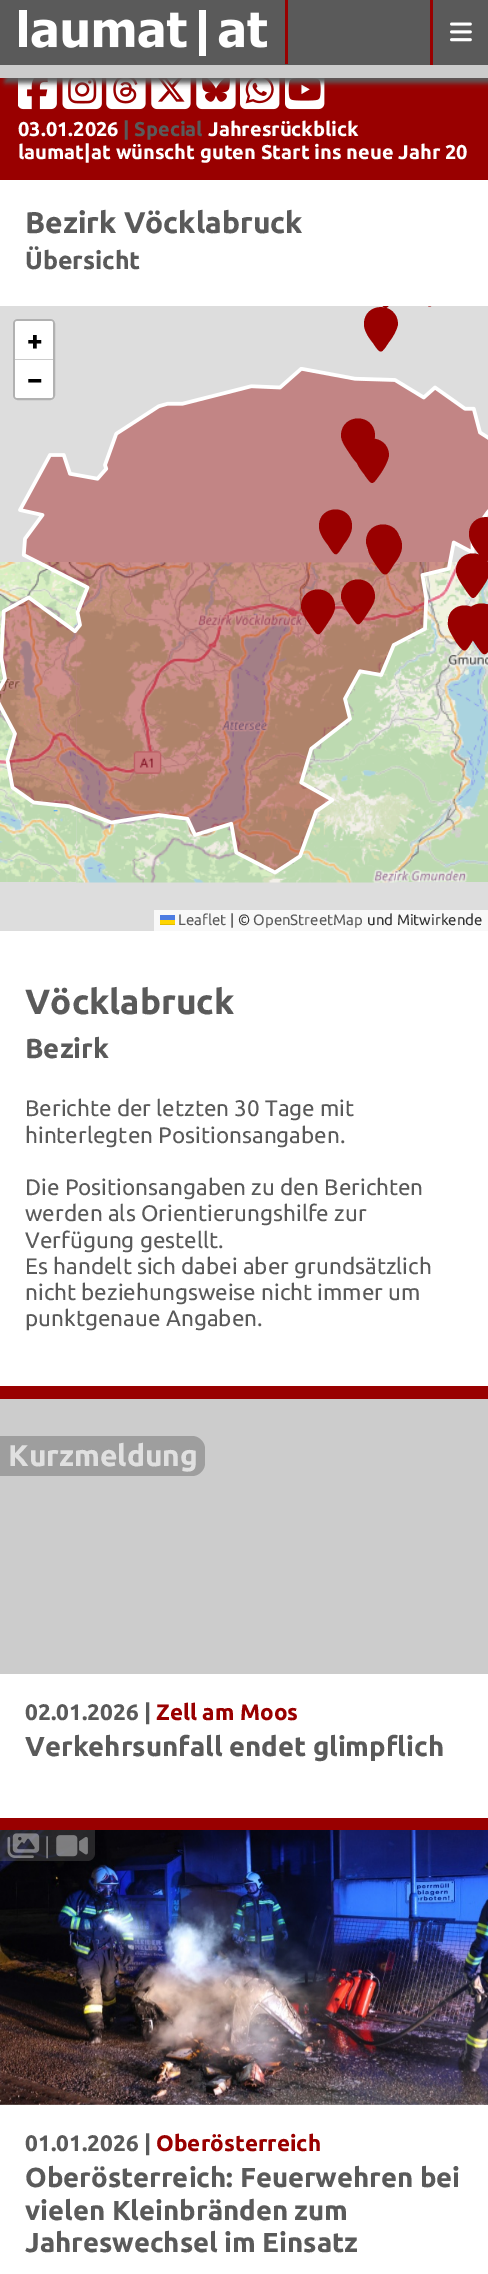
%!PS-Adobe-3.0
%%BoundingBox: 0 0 488 2274
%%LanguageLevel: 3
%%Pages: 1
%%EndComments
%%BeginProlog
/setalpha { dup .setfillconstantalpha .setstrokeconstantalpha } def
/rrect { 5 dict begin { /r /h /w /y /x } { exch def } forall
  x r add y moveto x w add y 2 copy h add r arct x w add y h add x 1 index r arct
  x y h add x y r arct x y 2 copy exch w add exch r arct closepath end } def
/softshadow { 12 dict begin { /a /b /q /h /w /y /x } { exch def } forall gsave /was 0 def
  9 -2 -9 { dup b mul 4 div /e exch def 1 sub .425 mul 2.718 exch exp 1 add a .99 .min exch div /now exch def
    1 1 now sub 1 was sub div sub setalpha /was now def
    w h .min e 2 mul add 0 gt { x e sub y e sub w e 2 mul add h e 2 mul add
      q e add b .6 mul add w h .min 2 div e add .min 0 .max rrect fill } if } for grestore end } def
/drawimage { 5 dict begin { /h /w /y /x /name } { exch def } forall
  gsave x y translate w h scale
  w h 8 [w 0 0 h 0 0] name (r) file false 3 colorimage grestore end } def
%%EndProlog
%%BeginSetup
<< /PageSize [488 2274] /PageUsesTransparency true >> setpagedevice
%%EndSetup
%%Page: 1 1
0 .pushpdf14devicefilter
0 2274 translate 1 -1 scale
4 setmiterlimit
1 setgray
0 0 488 2274 rectfill
0.6 0 0 setrgbcolor
0 78 488 102 rectfill
(images/3.raw) 18 78 39 32 drawimage
(images/4.raw) 62 78 40 32 drawimage
(images/5.raw) 106 78 40 32 drawimage
(images/6.raw) 151 78 40 32 drawimage
(images/7.raw) 196 78 40 32 drawimage
(images/8.raw) 240 78 40 32 drawimage
(images/9.raw) 285 78 40 32 drawimage
0.353 setgray
5 5 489 78 0 2.5 1 softshadow
0 0 488 65 rectfill
0.6 0 0 setrgbcolor
285 0 3 64 rectfill
(images/1.raw) 19 10 248 46 drawimage
430 0 3 65 rectfill
(images/2.raw) 450 22 22 20 drawimage
0.8 setgray
0 65 488 13 rectfill
0.867 setgray
0 306 488 625 rectfill
gsave
0 306 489 625 rectclip
0.6 0 0 setrgbcolor
newpath 446 279 moveto 446 285 442 292 438 297 curveto 430 309 430 310 421 298 curveto 418 293 412 286 412 279 curveto 413 257 446 256 446 279 curveto closepath 402 280 moveto 402 287 398 293 394 298 curveto 386 310 386 312 378 299 curveto 374 294 369 287 369 280 curveto 369 258 402 258 402 280 curveto closepath fill
grestore
0.6 0 0 setrgbcolor
newpath 398 324 moveto 397 330 393 337 389 342 curveto 381 354 381 355 373 343 curveto 369 338 364 331 364 324 curveto 364 302 397 301 398 324 curveto closepath fill
(images/11.raw) 0 562 76 320 drawimage
(images/12.raw) 76 562 321 321 drawimage
(images/13.raw) 396 562 92 320 drawimage
(images/10.raw) 0 367 488 508 drawimage
newpath 375 435 moveto 375 442 370 448 367 453 curveto 358 465 359 467 350 454 curveto 347 449 341 442 341 435 curveto 342 413 374 413 375 435 curveto closepath fill
newpath 389 455 moveto 388 462 384 468 381 473 curveto 372 485 373 487 364 474 curveto 360 469 355 462 355 455 curveto 355 433 388 433 389 455 curveto closepath fill
newpath 352 526 moveto 352 533 348 539 344 544 curveto 336 557 336 558 328 545 curveto 324 540 319 533 319 526 curveto 319 504 352 504 352 526 curveto closepath fill
newpath 400 541 moveto 400 548 395 554 392 559 curveto 383 572 384 573 375 560 curveto 372 555 366 548 366 541 curveto 367 519 399 519 400 541 curveto closepath fill
newpath 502 534 moveto 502 540 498 547 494 552 curveto 486 564 486 565 478 553 curveto 474 548 469 541 469 534 curveto 469 512 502 511 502 534 curveto closepath fill
newpath 401 546 moveto 401 553 397 559 393 564 curveto 385 577 385 578 376 565 curveto 373 560 367 553 368 546 curveto 368 524 401 524 401 546 curveto closepath fill
newpath 335 606 moveto 335 613 330 619 327 624 curveto 318 637 319 638 310 625 curveto 307 620 301 613 301 606 curveto 302 584 334 584 335 606 curveto closepath fill
newpath 375 596 moveto 375 603 370 609 367 614 curveto 358 627 359 628 350 615 curveto 347 610 341 603 341 596 curveto 342 574 374 574 375 596 curveto closepath fill
newpath 402 546 moveto 402 553 398 559 394 564 curveto 386 577 386 578 378 565 curveto 374 560 369 553 369 546 curveto 369 524 402 524 402 546 curveto closepath fill
newpath 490 570 moveto 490 577 485 583 482 588 curveto 473 600 474 602 465 589 curveto 462 584 456 577 456 570 curveto 457 548 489 548 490 570 curveto closepath fill
newpath 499 620 moveto 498 627 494 633 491 638 curveto 482 650 483 652 474 639 curveto 470 634 465 627 465 620 curveto 465 598 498 598 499 620 curveto closepath fill
newpath 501 621 moveto 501 628 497 634 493 639 curveto 485 652 485 653 476 640 curveto 473 635 467 628 468 621 curveto 468 599 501 599 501 621 curveto closepath fill
newpath 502 621 moveto 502 628 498 634 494 639 curveto 486 652 486 653 478 640 curveto 474 635 469 628 469 621 curveto 469 599 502 599 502 621 curveto closepath fill
newpath 481 622 moveto 481 629 477 635 473 640 curveto 465 653 465 654 456 642 curveto 453 636 447 629 448 622 curveto 448 600 481 600 481 622 curveto closepath fill
newpath 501 626 moveto 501 633 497 639 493 644 curveto 485 657 485 658 476 645 curveto 473 640 467 633 468 626 curveto 468 604 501 604 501 626 curveto closepath fill
0.694 setgray
3 setlinewidth
14.5 320.5 39 78 3.5 rrect stroke
1 setgray
newpath 17.5 321 moveto 50.5 321 lineto 52 321 53 322 53 323.5 curveto 53 360 lineto 15 360 lineto 15 323.5 lineto 15 322 16 321 17.5 321 curveto closepath fill
0.8 setgray
15 359 38 1 rectfill
1 setgray
newpath 15 360 moveto 53 360 lineto 53 395.5 lineto 53 397 52 398 50.5 398 curveto 17.5 398 lineto 16 398 15 397 15 395.5 curveto closepath fill
0.973 setgray
154 910 334 21 rectfill
0.298 0.482 0.882 setrgbcolor
160 915 15 5 rectfill
1 0.835 0 setrgbcolor
160 920 15 4 rectfill
0.878 0.737 0 setrgbcolor
160 924 15 1 rectfill
0.6 0 0 setrgbcolor
0 1386 488 13 rectfill
0.8 setgray
0 1399 488 275 rectfill
0.62 setgray
newpath 0 1436 moveto 192 1436 lineto 199 1436 205 1442 205 1449 curveto 205 1463 lineto 205 1470 199 1476 192 1476 curveto 0 1476 lineto closepath fill
0.6 0 0 setrgbcolor
0 1818 488 12 rectfill
(images/14.raw) 0 1830 488 275 drawimage
0.4 setalpha
0.353 setgray
newpath 0 1830 moveto 95 1830 lineto 95 1853 lineto 95 1857.5 91.5 1861 87 1861 curveto 0 1861 lineto closepath fill
1 setalpha
(images/15.raw) 7 1833 33 25 drawimage
(images/16.raw) 56 1835 32 22 drawimage
/Ubuntu-Bold [20 0 0 -20 0 0] selectfont
1 setgray
18 136 moveto (03.01.2026) show
0.353 setgray
123 136 moveto (| Special) show
1 setgray
208 136 moveto (Jahresrückblick) show
18 159 moveto (laumat|at wünscht guten Start ins neue Jahr 20) show
/Ubuntu-Bold [30 0 0 -30 0 0] selectfont
0.353 setgray
25 233 moveto (Bezirk Vöcklabruck) show
/Ubuntu-Bold [25 0 0 -25 0 0] selectfont
25 269 moveto (Übersicht) show
/Ubuntu-Bold [27.5 0 0 -27.5 0 0] selectfont
0 setgray
27 350 moveto (+) show
27 389 moveto (−) show
/Ubuntu-Regular [15 0 0 -15 0 0] selectfont
0.353 setgray
178 925 moveto (Leaflet) show
0.2 setgray
230 925 moveto (| ©) show
0.353 setgray
253 925 moveto (OpenStreetMap) show
0.2 setgray
367 925 moveto (und Mitwirkende) show
/Ubuntu-Bold [35 0 0 -35 0 0] selectfont
0.353 setgray
25 1014 moveto (Vöcklabruck) show
/Ubuntu-Bold [27.5 0 0 -27.5 0 0] selectfont
25 1058 moveto (Bezirk) show
/Ubuntu-Regular [22.5 0 0 -22.5 0 0] selectfont
25 1116 moveto (Berichte der letzten 30 Tage mit) show
25 1143 moveto (hinterlegten Positionsangaben.) show
25 1195 moveto (Die Positionsangaben zu den Berichten) show
25 1221 moveto (werden als Orientierungshilfe zur) show
25 1248 moveto (Verfügung gestellt.) show
25 1274 moveto (Es handelt sich dabei aber grundsätzlich) show
25 1300 moveto (nicht beziehungsweise nicht immer um) show
25 1326 moveto (punktgenaue Angaben.) show
/Ubuntu-Bold [30 0 0 -30 0 0] selectfont
0.878 setgray
8 1466 moveto (Kurzmeldung) show
/Ubuntu-Bold [22.5 0 0 -22.5 0 0] selectfont
0.353 setgray
25 1720 moveto (02.01.2026 |) show
0.6 0 0 setrgbcolor
156 1720 moveto (Zell am Moos) show
/Ubuntu-Bold [27.5 0 0 -27.5 0 0] selectfont
0.353 setgray
25 1756 moveto (Verkehrsunfall endet glimpflich) show
/Ubuntu-Regular [22.5 0 0 -22.5 0 0] selectfont
0.49 0.49 0.502 setrgbcolor
44 1854 moveto (|) show
/Ubuntu-Bold [22.5 0 0 -22.5 0 0] selectfont
0.353 setgray
25 2151 moveto (01.01.2026 |) show
0.6 0 0 setrgbcolor
156 2151 moveto (Oberösterreich) show
/Ubuntu-Bold [27.5 0 0 -27.5 0 0] selectfont
0.353 setgray
25 2187 moveto (Oberösterreich: Feuerwehren bei) show
25 2220 moveto (vielen Kleinbränden zum) show
25 2252 moveto (Jahreswechsel im Einsatz) show
.poppdf14devicefilter showpage
%%EOF
